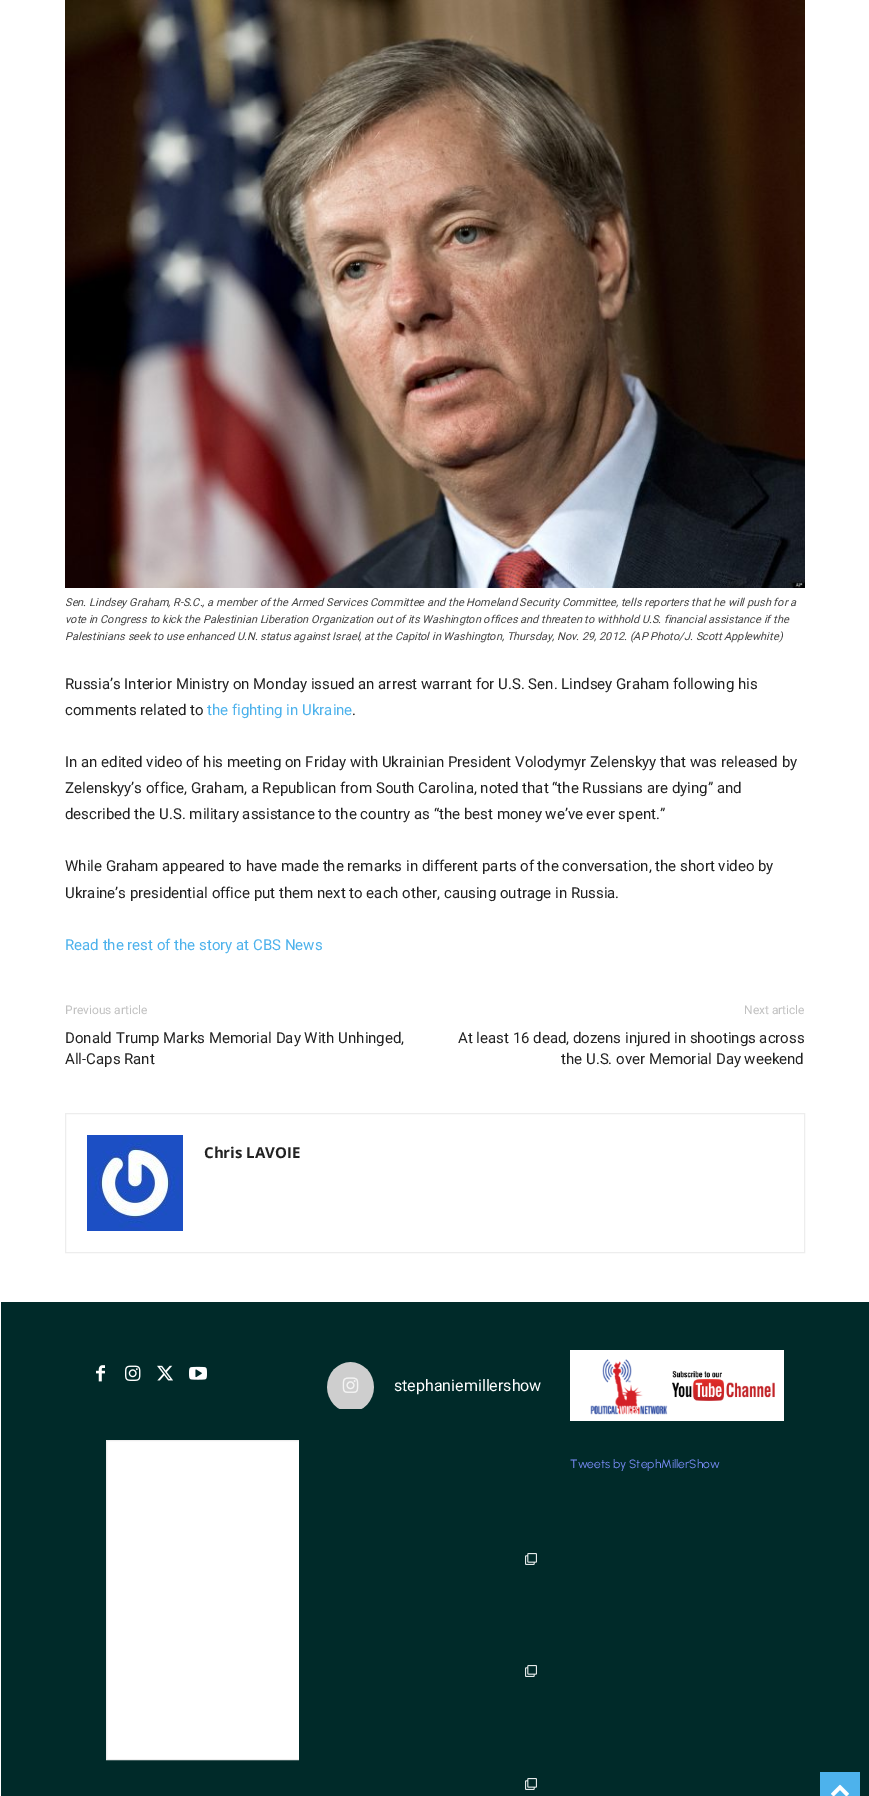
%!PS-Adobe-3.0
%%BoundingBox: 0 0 869 1796
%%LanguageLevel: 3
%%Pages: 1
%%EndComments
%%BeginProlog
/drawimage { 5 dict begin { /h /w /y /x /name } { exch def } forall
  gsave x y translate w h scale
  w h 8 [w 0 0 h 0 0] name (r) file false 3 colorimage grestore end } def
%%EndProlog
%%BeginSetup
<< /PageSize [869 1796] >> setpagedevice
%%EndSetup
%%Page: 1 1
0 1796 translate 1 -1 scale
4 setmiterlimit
1 setgray
0 0 869 1796 rectfill
(images/1.raw) 65 0 740 588 drawimage
0.929 setgray
65.5 1113.5 739 139 rectstroke
(images/2.raw) 87 1135 96 96 drawimage
0 0.165 0.161 setrgbcolor
1 1302 868 494 rectfill
(images/3.raw) 96 1365 9 17 drawimage
(images/4.raw) 125 1365 16 16 drawimage
(images/5.raw) 157 1365 16 16 drawimage
(images/6.raw) 189 1366 18 14 drawimage
1 setgray
107 1441 192 318 rectfill
gsave
106 1440 193 327 rectclip
0.933 setgray
106.5 1440.5 299 319 rectstroke
grestore
(images/7.raw) 327 1362 47 47 drawimage
(images/8.raw) 525 1553 12 12 drawimage
(images/8.raw) 525 1665 12 12 drawimage
(images/8.raw) 525 1778 12 12 drawimage
(images/9.raw) 570 1350 214 71 drawimage
0.302 0.698 0.925 setrgbcolor
820 1772 40 24 rectfill
(images/10.raw) 831 1784 18 12 drawimage
/Roboto-Italic [11 0 0 -11 0 0] selectfont
0.267 setgray
65 606 moveto (Sen. Lindsey Graham, R-S.C., a member of the Armed Services Committee and the Homeland Security Committee, tells reporters that he will push for a) show
65 623 moveto (vote in Congress to kick the Palestinian Liberation Organization out of its Washington offices and threaten to withhold U.S. financial assistance if the) show
65 640 moveto (Palestinians seek to use enhanced U.N. status against Israel, at the Capitol in Washington, Thursday, Nov. 29, 2012. \(AP Photo/J. Scott Applewhite\)) show
/Roboto-Regular [15 0 0 -15 0 0] selectfont
0.133 setgray
65 689 moveto (Russia’s Interior Ministry on Monday issued an arrest warrant for U.S. Sen. Lindsey Graham following his) show
65 715 moveto (comments related to) show
0.302 0.698 0.925 setrgbcolor
207 715 moveto (the fighting in Ukraine) show
0.133 setgray
352 715 moveto (.) show
65 767 moveto (In an edited video of his meeting on Friday with Ukrainian President Volodymyr Zelenskyy that was released by) show
65 793 moveto (Zelenskyy’s office, Graham, a Republican from South Carolina, noted that “the Russians are dying” and) show
65 819 moveto (described the U.S. military assistance to the country as “the best money we’ve ever spent.”) show
65 871 moveto (While Graham appeared to have made the remarks in different parts of the conversation, the short video by) show
65 898 moveto (Ukraine’s presidential office put them next to each other, causing outrage in Russia.) show
0.302 0.698 0.925 setrgbcolor
65 950 moveto (Read the rest of the story at CBS News) show
/Roboto-Regular [12 0 0 -12 0 0] selectfont
0.757 setgray
65 1014 moveto (Previous article) show
/Roboto-Regular [15 0 0 -15 0 0] selectfont
0.133 setgray
65 1043 moveto (Donald Trump Marks Memorial Day With Unhinged,) show
65 1064 moveto (All-Caps Rant) show
/Roboto-Regular [12 0 0 -12 0 0] selectfont
0.757 setgray
744 1014 moveto (Next article) show
/Roboto-Regular [15 0 0 -15 0 0] selectfont
0.133 setgray
458 1043 moveto (At least 16 dead, dozens injured in shootings across) show
561 1064 moveto (the U.S. over Memorial Day weekend) show
/OpenSans-Bold [15 0 0 -15 0 0] selectfont
204 1158 moveto (Chris LAVOIE) show
/Roboto-Regular [16 0 0 -16 0 0] selectfont
1 setgray
394 1391 moveto (stephaniemillershow) show
/Urbanist-Regular [12 0 0 -12 0 0] selectfont
0.486 0.557 0.988 setrgbcolor
570 1468 moveto (Tweets by StephMillerShow) show
showpage
%%EOF
